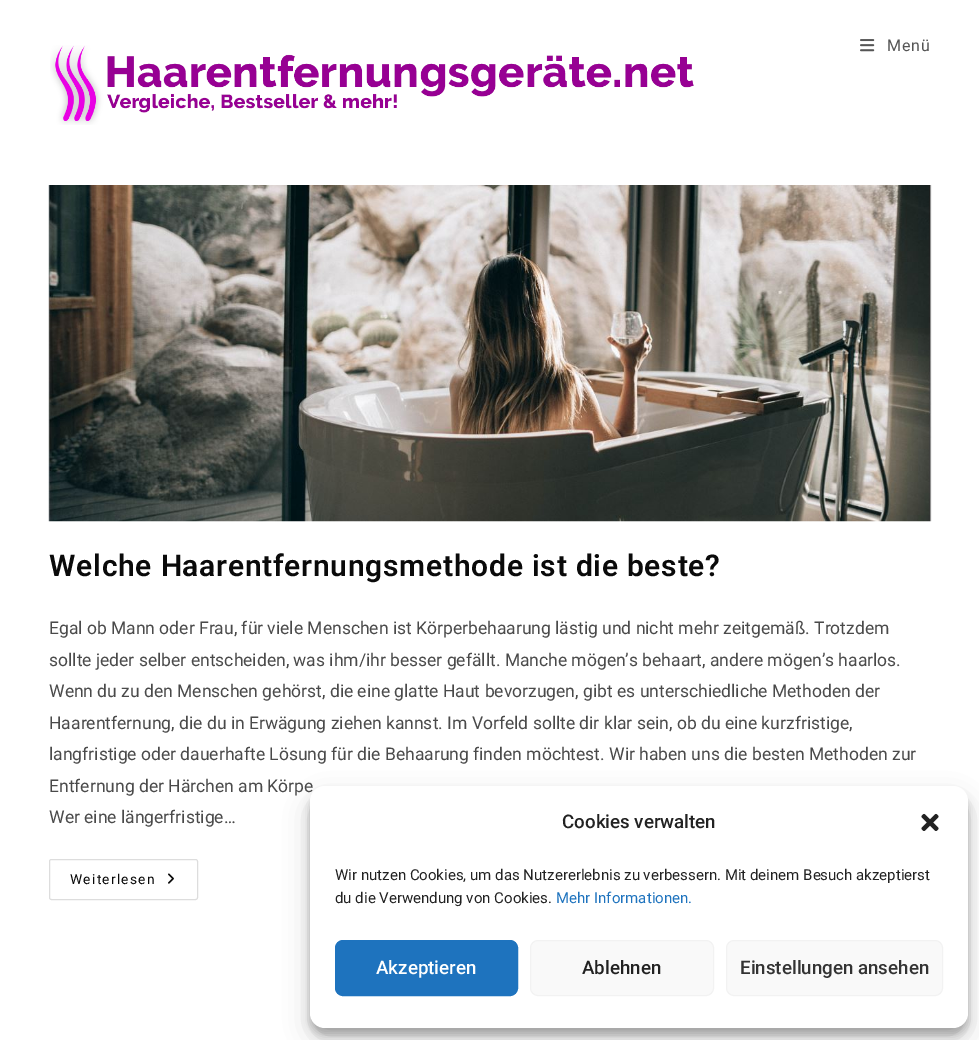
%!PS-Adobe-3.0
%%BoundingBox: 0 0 979 1040
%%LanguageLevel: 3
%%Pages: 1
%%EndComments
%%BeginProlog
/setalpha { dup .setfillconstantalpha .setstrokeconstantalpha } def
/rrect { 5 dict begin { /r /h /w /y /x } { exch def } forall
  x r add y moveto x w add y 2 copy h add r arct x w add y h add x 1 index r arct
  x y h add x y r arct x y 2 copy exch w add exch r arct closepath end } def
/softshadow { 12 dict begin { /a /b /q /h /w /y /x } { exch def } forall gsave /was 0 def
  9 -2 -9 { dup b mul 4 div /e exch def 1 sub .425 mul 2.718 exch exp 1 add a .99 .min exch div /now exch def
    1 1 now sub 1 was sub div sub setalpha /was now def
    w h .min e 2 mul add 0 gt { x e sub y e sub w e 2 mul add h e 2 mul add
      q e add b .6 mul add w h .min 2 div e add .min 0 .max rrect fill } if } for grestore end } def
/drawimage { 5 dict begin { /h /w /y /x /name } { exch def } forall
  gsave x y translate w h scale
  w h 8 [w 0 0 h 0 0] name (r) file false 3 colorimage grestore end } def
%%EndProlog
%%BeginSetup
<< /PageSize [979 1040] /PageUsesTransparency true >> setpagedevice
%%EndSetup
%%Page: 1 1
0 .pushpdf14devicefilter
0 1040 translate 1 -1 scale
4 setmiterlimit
1 setgray
0 0 979 1040 rectfill
(images/1.raw) 50 45 644 80 drawimage
(images/2.raw) 860 39 15 13 drawimage
(images/3.raw) 48 185 884 337 drawimage
0.867 setgray
49.5 859.5 148 40 2 rrect stroke
(images/4.raw) 168 873 6 11 drawimage
0 setgray
310 794 658 241 15 4 0.23 softshadow
310 799 658 241 15 12.5 0.19 softshadow
/Roboto-Regular [16 0 0 -16 0 0] selectfont
0.333 setgray
887 51 moveto 0.75 0 (Menü) ashow
/Roboto-SemiBold [30 0 0 -30 0 0] selectfont
0.039 setgray
49 576 moveto 0.75 0 (Welche Haarentfernungsmethode ist die beste?) ashow
/Roboto-Regular [17.5 0 0 -17.5 0 0] selectfont
0.29 setgray
49 634 moveto (Egal ob Mann oder Frau, für viele Menschen ist Körperbehaarung lästig und nicht mehr zeitgemäß. Trotzdem) show
49 666 moveto (sollte jeder selber entscheiden, was ihm/ihr besser gefällt. Manche mögen’s behaart, andere mögen’s haarlos.) show
49 697 moveto (Wenn du zu den Menschen gehörst, die eine glatte Haut bevorzugen, gibt es unterschiedliche Methoden der) show
49 729 moveto (Haarentfernung, die du in Erwägung ziehen kannst. Im Vorfeld sollte dir klar sein, ob du eine kurzfristige,) show
49 760 moveto (langfristige oder dauerhafte Lösung für die Behaarung finden möchtest. Wir haben uns die besten Methoden zur) show
49 792 moveto (Entfernung der Härchen am Körpe) show
49 823 moveto (Wer eine längerfristige…) show
/Roboto-Regular [13.75 0 0 -13.75 0 0] selectfont
0.039 setgray
70 884 moveto 1.25 0 (Weiterlesen) ashow
1 setgray
310 786 658 242 15 rrect fill
/Roboto-Medium [18.75 0 0 -18.75 0 0] selectfont
0.133 setgray
562 828 moveto (Cookies verwalten) show
(images/5.raw) 921 813 18 18 drawimage
/Roboto-Regular [15 0 0 -15 0 0] selectfont
335 880 moveto (Wir nutzen Cookies, um das Nutzererlebnis zu verbessern. Mit deinem Besuch akzeptierst) show
335 903 moveto (du die Verwendung von Cookies.) show
0.118 0.451 0.745 setrgbcolor
556 903 moveto (Mehr Informationen.) show
335.5 940.5 182 55 7.5 rrect gsave fill grestore
stroke
/Roboto-Medium [18.75 0 0 -18.75 0 0] selectfont
1 setgray
376 974 moveto (Akzeptieren) show
0.976 setgray
530.5 940.5 183 55 7.5 rrect gsave fill grestore
0.949 setgray
stroke
0.133 setgray
582 974 moveto (Ablehnen) show
0.976 setgray
726.5 940.5 216 55 7.5 rrect gsave fill grestore
0.949 setgray
stroke
0.2 setgray
740 974 moveto (Einstellungen ansehen) show
.poppdf14devicefilter showpage
%%EOF
